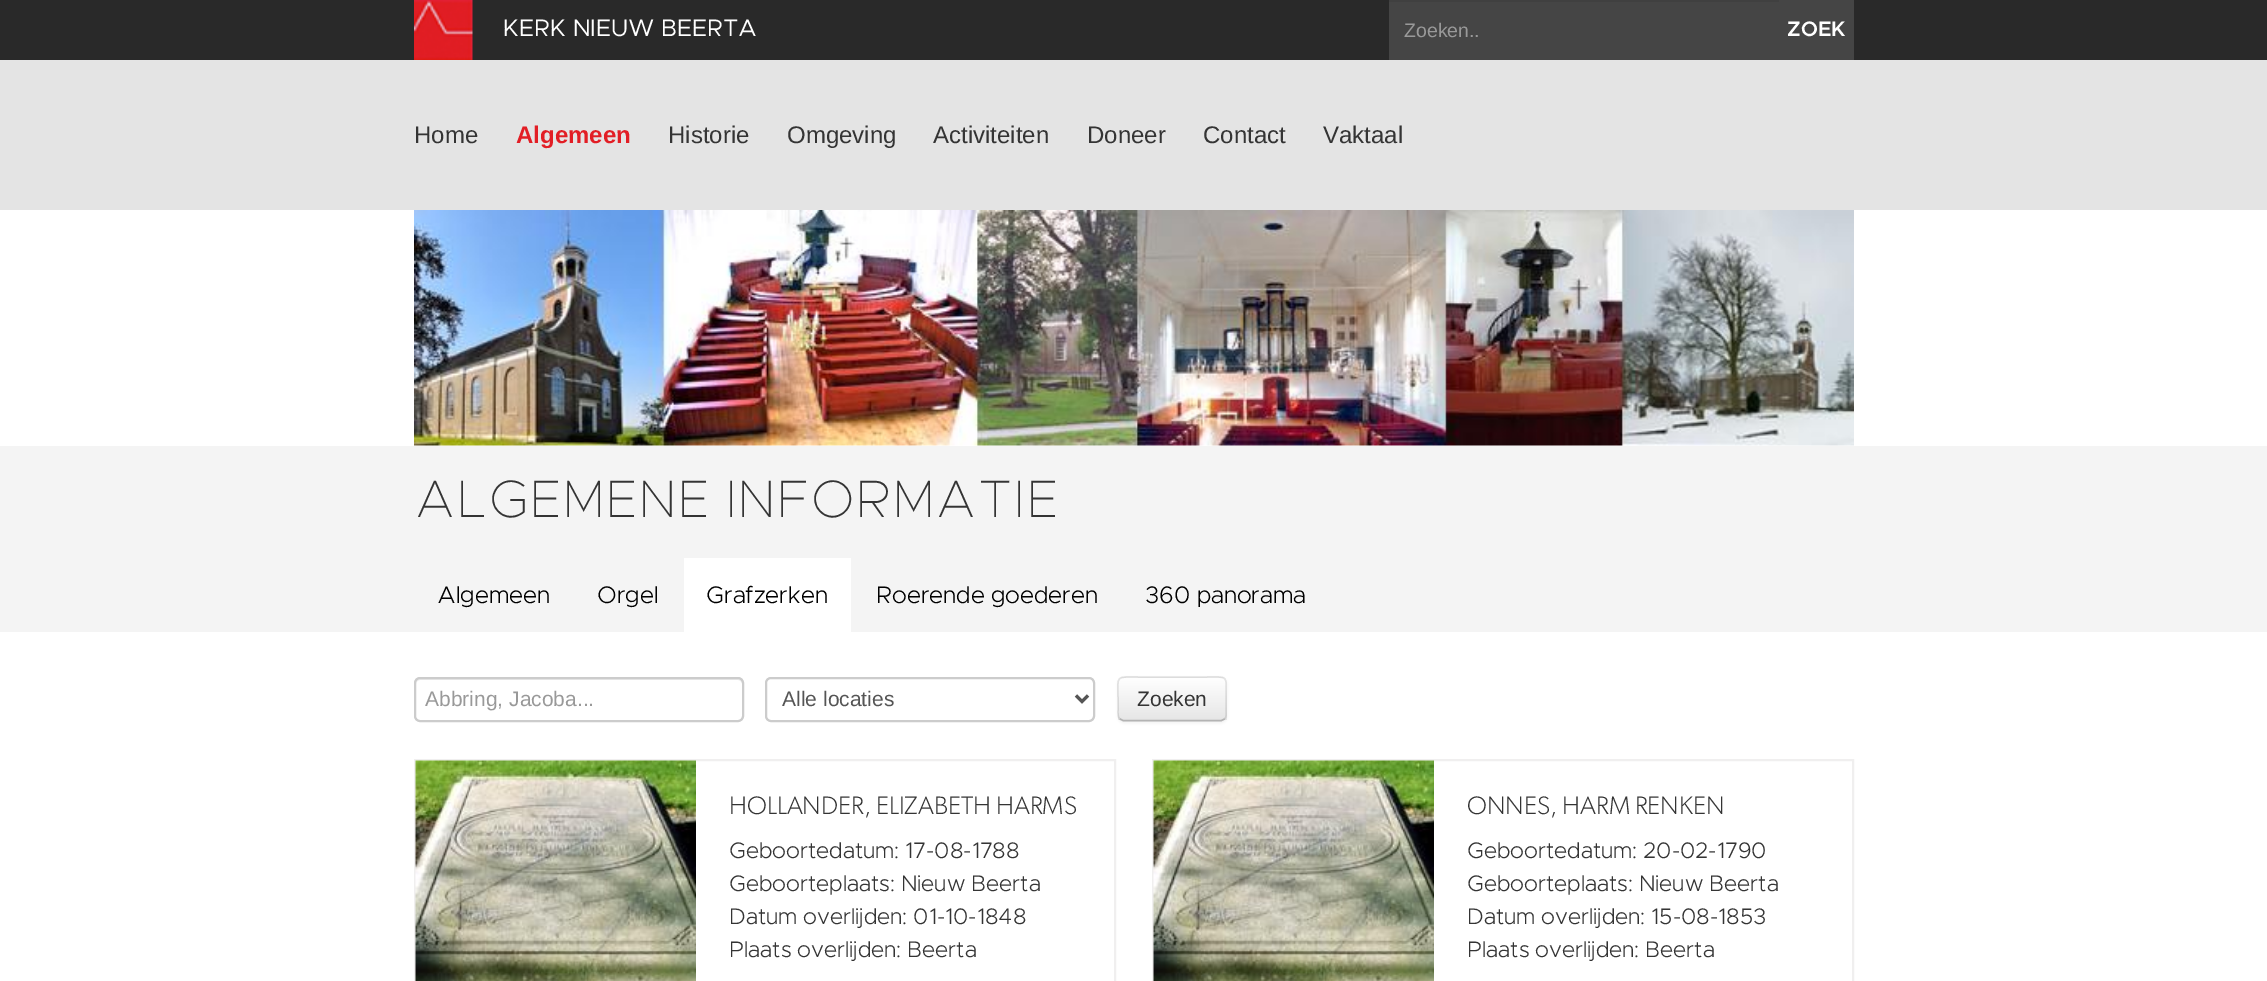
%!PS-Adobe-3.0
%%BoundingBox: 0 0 2267 981
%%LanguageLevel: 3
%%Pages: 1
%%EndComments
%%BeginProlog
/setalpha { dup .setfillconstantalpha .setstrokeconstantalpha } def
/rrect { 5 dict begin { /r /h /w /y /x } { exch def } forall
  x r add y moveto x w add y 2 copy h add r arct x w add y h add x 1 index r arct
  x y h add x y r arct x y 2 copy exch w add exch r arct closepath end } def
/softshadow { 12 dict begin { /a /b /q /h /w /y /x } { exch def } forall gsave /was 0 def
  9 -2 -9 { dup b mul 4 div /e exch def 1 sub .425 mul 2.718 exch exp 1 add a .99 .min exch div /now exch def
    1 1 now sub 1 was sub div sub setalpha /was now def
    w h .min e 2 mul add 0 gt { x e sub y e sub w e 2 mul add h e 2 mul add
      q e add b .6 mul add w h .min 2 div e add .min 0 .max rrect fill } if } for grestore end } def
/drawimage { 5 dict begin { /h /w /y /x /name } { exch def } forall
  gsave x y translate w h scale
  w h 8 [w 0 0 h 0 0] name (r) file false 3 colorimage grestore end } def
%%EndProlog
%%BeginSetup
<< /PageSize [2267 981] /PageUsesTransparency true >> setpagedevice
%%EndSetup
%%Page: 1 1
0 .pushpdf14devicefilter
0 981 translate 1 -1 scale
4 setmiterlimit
1 setgray
0 0 2267 981 rectfill
0.161 setgray
0 0 2267 60 rectfill
(images/1.raw) 414 0 59 60 drawimage
0.271 setgray
1389 0 465 60 rectfill
0.251 setgray
1389 0 390 2 rectfill
0.894 setgray
0 60 2267 150 rectfill
(images/2.raw) 414 210 1440 236 drawimage
0.957 setgray
0 446 2267 186 rectfill
1 setgray
684 558 167 74 rectfill
0.925 setgray
newpath 420 680 moveto 738 680 lineto 740 680 742 682 742 684 curveto 742 718 lineto 743 717 743 716 743 715 curveto 743 683 lineto 743 680 741 678 738 678 curveto 421 678 lineto 418 678 416 680 416 683 curveto 416 684 lineto 416 682 418 680 420 680 curveto closepath fill
0.8 setgray
2 setlinewidth
415 678 328 43 5 rrect stroke
766 678 328 43 5 rrect stroke
0.333 setgray
3 setlinewidth
newpath 1076 695.5 moveto 1082 701.5 lineto 1088 695.5 lineto stroke
0 setgray
1118 678 109 45 6 1.5 0.05 softshadow
0.961 setgray
1118 677 109 45 6 rrect fill
gsave
1118 677 109 45 6 rrect clip newpath
gsave newpath 1118 678 moveto 1227 678 lineto 1227 720 lineto 1118 720 lineto closepath clip newpath
<< /ShadingType 2 /ColorSpace /DeviceRGB /Coords [1172 678 1172 720] /Extend [true true] /Function << /FunctionType 2 /Domain [0 1] /C0 [1 1 1] /C1 [0.902 0.902 0.902] /N 1 >> >> shfill grestore
grestore
0.702 setgray
1.5 setlinewidth
newpath 1224.5 719 moveto 1221.5 720.5 lineto 1123 720.5 lineto 1120 719 lineto stroke
0.1 setalpha
0 setgray
newpath 1120 719 moveto 1117.5 717 1118 713 1118 710 curveto 1118 699 lineto 1118 674.5 1114.5 677 1140 677 curveto 1205 677 lineto 1230 677 1226 674.5 1226 699 curveto 1226 710 lineto 1226 713 1227 717 1224.5 719 curveto stroke
1 setalpha
0.941 0.937 0.937 setrgbcolor
2 setlinewidth
415 760 700 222 rectstroke
(images/3.raw) 415 760 281 221 drawimage
1153 760 700 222 rectstroke
(images/3.raw) 1153 760 281 221 drawimage
/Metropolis-Regular [24 0 0 -24 0 0] selectfont
1 setgray
503 36 moveto (KERK NIEUW BEERTA) show
/LiberationSans-Regular [19.5 0 0 -19.5 0 0] selectfont
0.6 setgray
1404 37 moveto (Zoeken..) show
/Metropolis-SemiBold [21 0 0 -21 0 0] selectfont
1 setgray
1787 36 moveto (ZOEK) show
/LiberationSans-Regular [24 0 0 -24 0 0] selectfont
0.204 setgray
414 143 moveto (Home) show
/LiberationSans-Bold [24 0 0 -24 0 0] selectfont
0.886 0.118 0.145 setrgbcolor
516 143 moveto (Algemeen) show
/LiberationSans-Regular [24 0 0 -24 0 0] selectfont
0.204 setgray
668 143 moveto (Historie) show
787 143 moveto (Omgeving) show
933 143 moveto (Activiteiten) show
1087 143 moveto (Doneer) show
1203 143 moveto (Contact) show
1323 143 moveto (Vaktaal) show
/Metropolis-Thin [52.75 0 0 -52.75 0 0] selectfont
414 517 moveto (ALGEMENE INFORMATIE) show
/Metropolis-Light [24 0 0 -24 0 0] selectfont
0 setgray
437 603 moveto (Algemeen) show
597 603 moveto (Orgel) show
706 603 moveto (Grafzerken) show
876 603 moveto (Roerende goederen) show
1145 603 moveto (360 panorama) show
/LiberationSans-Regular [21 0 0 -21 0 0] selectfont
0.6 setgray
425 706 moveto (Abbring, Jacoba...) show
0.333 setgray
782 706 moveto (Alle locaties) show
0.204 setgray
1137 706 moveto (Zoeken) show
/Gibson-Light [25.25 0 0 -25.25 0 0] selectfont
729 814 moveto (HOLLANDER, ELIZABETH HARMS) show
/Metropolis-Light [22.5 0 0 -22.5 0 0] selectfont
729 858 moveto (Geboortedatum: 17-08-1788) show
729 891 moveto (Geboorteplaats: Nieuw Beerta) show
729 924 moveto (Datum overlijden: 01-10-1848) show
729 957 moveto (Plaats overlijden: Beerta) show
/Gibson-Light [25.25 0 0 -25.25 0 0] selectfont
1467 814 moveto (ONNES, HARM RENKEN) show
/Metropolis-Light [22.5 0 0 -22.5 0 0] selectfont
1467 858 moveto (Geboortedatum: 20-02-1790) show
1467 891 moveto (Geboorteplaats: Nieuw Beerta) show
1467 924 moveto (Datum overlijden: 15-08-1853) show
1467 957 moveto (Plaats overlijden: Beerta) show
.poppdf14devicefilter showpage
%%EOF
